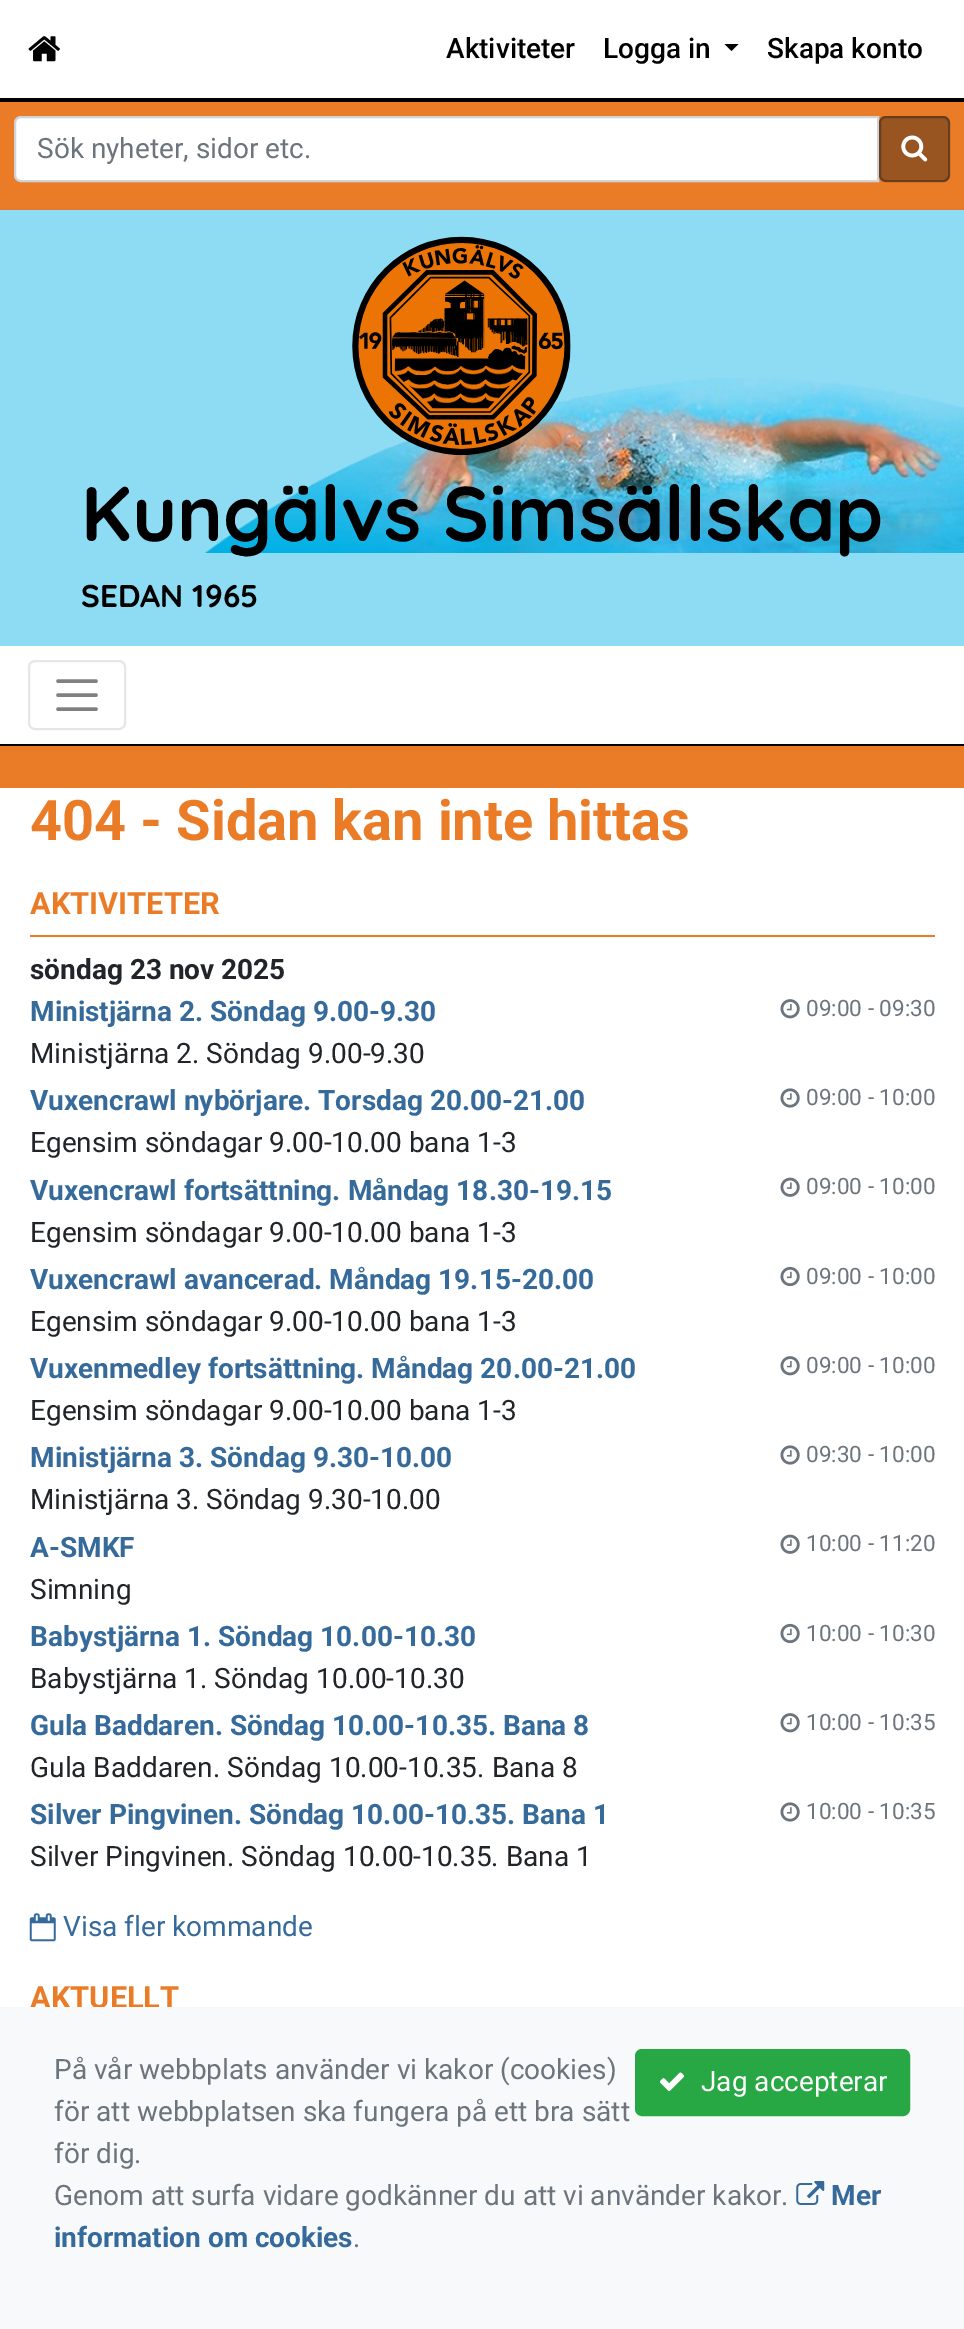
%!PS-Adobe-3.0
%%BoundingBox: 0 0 964 2329
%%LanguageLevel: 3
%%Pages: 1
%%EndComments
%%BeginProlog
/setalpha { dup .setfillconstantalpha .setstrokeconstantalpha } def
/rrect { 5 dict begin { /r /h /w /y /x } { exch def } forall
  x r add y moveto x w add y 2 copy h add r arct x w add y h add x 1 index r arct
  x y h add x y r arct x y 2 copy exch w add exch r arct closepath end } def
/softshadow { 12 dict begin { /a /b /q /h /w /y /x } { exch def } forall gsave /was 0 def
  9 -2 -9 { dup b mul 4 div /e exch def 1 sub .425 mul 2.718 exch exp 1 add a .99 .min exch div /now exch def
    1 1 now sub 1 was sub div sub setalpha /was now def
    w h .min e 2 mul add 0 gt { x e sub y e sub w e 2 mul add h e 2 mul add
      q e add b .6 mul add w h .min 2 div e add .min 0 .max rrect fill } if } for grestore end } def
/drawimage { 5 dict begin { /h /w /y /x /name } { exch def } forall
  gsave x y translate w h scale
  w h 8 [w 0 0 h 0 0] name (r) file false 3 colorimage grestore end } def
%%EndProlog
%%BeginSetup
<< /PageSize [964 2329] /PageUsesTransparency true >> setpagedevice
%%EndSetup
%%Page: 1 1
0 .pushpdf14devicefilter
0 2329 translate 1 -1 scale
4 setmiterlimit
0.918 0.486 0.157 setrgbcolor
0 0 964 2329 rectfill
1 setgray
0 0 964 98 rectfill
0 setgray
0 98 964 4 rectfill
(images/1.raw) 28 36 32 26 drawimage
newpath 724.5 44 moveto 738.5 44 lineto 731.5 51 lineto closepath fill
1 setgray
newpath 21 117 moveto 878 117 lineto 878 181 lineto 21 181 lineto 17.5 181 15 178.5 15 175 curveto 15 123 lineto 15 119.5 17.5 117 21 117 curveto closepath gsave fill grestore
0.808 0.831 0.855 setrgbcolor
2 setlinewidth
stroke
0.596 0.333 0.129 setrgbcolor
879 116 71 66 7 rrect fill
0.4 setalpha
0.114 0.106 0.09 setrgbcolor
880 117 69 64 6 rrect stroke
1 setalpha
(images/2.raw) 901 135 27 27 drawimage
0.392 setgray
0 214 964 435 0 5 0.3 softshadow
0.557 0.863 0.953 setrgbcolor
0 210 964 436 rectfill
(images/3.raw) 201 373 763 180 drawimage
(images/4.raw) 352 236 219 219 drawimage
1 setgray
0 646 964 98 rectfill
0.902 setgray
29 661 96 68 6 rrect stroke
0.502 setgray
3.5 setlinewidth
1 setlinecap
newpath 58 681 moveto 96 681 lineto 58 695 moveto 96 695 lineto 58 709 moveto 96 709 lineto stroke
0 setgray
0 744 964 2 rectfill
1 setgray
0 788 964 1219 rectfill
0.918 0.486 0.157 setrgbcolor
30 935 905 2 rectfill
(images/5.raw) 780 999 20 20 drawimage
(images/6.raw) 780 1088 20 20 drawimage
(images/7.raw) 780 1177 20 20 drawimage
(images/8.raw) 780 1266 20 21 drawimage
(images/5.raw) 780 1356 20 20 drawimage
(images/6.raw) 780 1445 20 20 drawimage
(images/7.raw) 780 1534 20 20 drawimage
(images/8.raw) 780 1623 20 21 drawimage
(images/5.raw) 780 1713 20 20 drawimage
(images/6.raw) 780 1802 20 20 drawimage
(images/9.raw) 29 1913 27 29 drawimage
/Roboto-Medium [28 0 0 -28 0 0] selectfont
0 setgray
446 58 moveto (Aktiviteter) show
603 58 moveto (Logga in) show
767 58 moveto (Skapa konto) show
/Roboto-Regular [28 0 0 -28 0 0] selectfont
0.424 0.459 0.49 setrgbcolor
37 158 moveto (Sök nyheter, sidor etc.) show
/Quicksand-Bold [77.1 0 0 -77.1 0 0] selectfont
0 setgray
81 541 moveto (Kungälvs Simsällskap) show
/Quicksand-Bold [31.5 0 0 -31.5 0 0] selectfont
81 607 moveto (SEDAN 1965) show
/Roboto-Bold [56 0 0 -56 0 0] selectfont
0.918 0.486 0.157 setrgbcolor
30 840 moveto (404 - Sidan kan inte hittas) show
/Roboto-Bold [30.75 0 0 -30.75 0 0] selectfont
30 914 moveto (AKTIVITETER) show
/Roboto-Bold [28 0 0 -28 0 0] selectfont
0.129 0.145 0.161 setrgbcolor
30 979 moveto (söndag 23 nov 2025) show
0.208 0.416 0.604 setrgbcolor
30 1021 moveto (Ministjärna 2. Söndag 9.00-9.30) show
/Roboto-Regular [22.5 0 0 -22.5 0 0] selectfont
0.424 0.459 0.49 setrgbcolor
806 1016 moveto (09:00 - 09:30) show
/Roboto-Regular [28 0 0 -28 0 0] selectfont
0.129 0.145 0.161 setrgbcolor
30 1063 moveto (Ministjärna 2. Söndag 9.00-9.30) show
/Roboto-Bold [28 0 0 -28 0 0] selectfont
0.208 0.416 0.604 setrgbcolor
30 1110 moveto (Vuxencrawl nybörjare. Torsdag 20.00-21.00) show
/Roboto-Regular [22.5 0 0 -22.5 0 0] selectfont
0.424 0.459 0.49 setrgbcolor
806 1105 moveto (09:00 - 10:00) show
/Roboto-Regular [28 0 0 -28 0 0] selectfont
0.129 0.145 0.161 setrgbcolor
30 1152 moveto (Egensim söndagar 9.00-10.00 bana 1-3) show
/Roboto-Bold [28 0 0 -28 0 0] selectfont
0.208 0.416 0.604 setrgbcolor
30 1200 moveto (Vuxencrawl fortsättning. Måndag 18.30-19.15) show
/Roboto-Regular [22.5 0 0 -22.5 0 0] selectfont
0.424 0.459 0.49 setrgbcolor
806 1194 moveto (09:00 - 10:00) show
/Roboto-Regular [28 0 0 -28 0 0] selectfont
0.129 0.145 0.161 setrgbcolor
30 1242 moveto (Egensim söndagar 9.00-10.00 bana 1-3) show
/Roboto-Bold [28 0 0 -28 0 0] selectfont
0.208 0.416 0.604 setrgbcolor
30 1289 moveto (Vuxencrawl avancerad. Måndag 19.15-20.00) show
/Roboto-Regular [22.5 0 0 -22.5 0 0] selectfont
0.424 0.459 0.49 setrgbcolor
806 1284 moveto (09:00 - 10:00) show
/Roboto-Regular [28 0 0 -28 0 0] selectfont
0.129 0.145 0.161 setrgbcolor
30 1331 moveto (Egensim söndagar 9.00-10.00 bana 1-3) show
/Roboto-Bold [28 0 0 -28 0 0] selectfont
0.208 0.416 0.604 setrgbcolor
30 1378 moveto (Vuxenmedley fortsättning. Måndag 20.00-21.00) show
/Roboto-Regular [22.5 0 0 -22.5 0 0] selectfont
0.424 0.459 0.49 setrgbcolor
806 1373 moveto (09:00 - 10:00) show
/Roboto-Regular [28 0 0 -28 0 0] selectfont
0.129 0.145 0.161 setrgbcolor
30 1420 moveto (Egensim söndagar 9.00-10.00 bana 1-3) show
/Roboto-Bold [28 0 0 -28 0 0] selectfont
0.208 0.416 0.604 setrgbcolor
30 1467 moveto (Ministjärna 3. Söndag 9.30-10.00) show
/Roboto-Regular [22.5 0 0 -22.5 0 0] selectfont
0.424 0.459 0.49 setrgbcolor
806 1462 moveto (09:30 - 10:00) show
/Roboto-Regular [28 0 0 -28 0 0] selectfont
0.129 0.145 0.161 setrgbcolor
30 1509 moveto (Ministjärna 3. Söndag 9.30-10.00) show
/Roboto-Bold [28 0 0 -28 0 0] selectfont
0.208 0.416 0.604 setrgbcolor
30 1557 moveto (A-SMKF) show
/Roboto-Regular [22.5 0 0 -22.5 0 0] selectfont
0.424 0.459 0.49 setrgbcolor
806 1551 moveto (10:00 - 11:20) show
/Roboto-Regular [28 0 0 -28 0 0] selectfont
0.129 0.145 0.161 setrgbcolor
30 1599 moveto (Simning) show
/Roboto-Bold [28 0 0 -28 0 0] selectfont
0.208 0.416 0.604 setrgbcolor
30 1646 moveto (Babystjärna 1. Söndag 10.00-10.30) show
/Roboto-Regular [22.5 0 0 -22.5 0 0] selectfont
0.424 0.459 0.49 setrgbcolor
806 1641 moveto (10:00 - 10:30) show
/Roboto-Regular [28 0 0 -28 0 0] selectfont
0.129 0.145 0.161 setrgbcolor
30 1688 moveto (Babystjärna 1. Söndag 10.00-10.30) show
/Roboto-Bold [28 0 0 -28 0 0] selectfont
0.208 0.416 0.604 setrgbcolor
30 1735 moveto (Gula Baddaren. Söndag 10.00-10.35. Bana 8) show
/Roboto-Regular [22.5 0 0 -22.5 0 0] selectfont
0.424 0.459 0.49 setrgbcolor
806 1730 moveto (10:00 - 10:35) show
/Roboto-Regular [28 0 0 -28 0 0] selectfont
0.129 0.145 0.161 setrgbcolor
30 1777 moveto (Gula Baddaren. Söndag 10.00-10.35. Bana 8) show
/Roboto-Bold [28 0 0 -28 0 0] selectfont
0.208 0.416 0.604 setrgbcolor
30 1824 moveto (Silver Pingvinen. Söndag 10.00-10.35. Bana 1) show
/Roboto-Regular [22.5 0 0 -22.5 0 0] selectfont
0.424 0.459 0.49 setrgbcolor
806 1819 moveto (10:00 - 10:35) show
/Roboto-Regular [28 0 0 -28 0 0] selectfont
0.129 0.145 0.161 setrgbcolor
30 1866 moveto (Silver Pingvinen. Söndag 10.00-10.35. Bana 1) show
0.208 0.416 0.604 setrgbcolor
63 1936 moveto (Visa fler kommande) show
/Roboto-Bold [30.75 0 0 -30.75 0 0] selectfont
0.918 0.486 0.157 setrgbcolor
30 2008 moveto (AKTUELLT) show
0.973 0.976 0.98 setrgbcolor
0 2007 964 322 rectfill
/Roboto-Regular [28 0 0 -28 0 0] selectfont
0.424 0.459 0.49 setrgbcolor
54 2079 moveto (På vår webbplats använder vi kakor \(cookies\)) show
54 2121 moveto (för att webbplatsen ska fungera på ett bra sätt) show
54 2163 moveto (för dig.) show
54 2205 moveto (Genom att surfa vidare godkänner du att vi använder kakor.) show
(images/10.raw) 796 2181 29 24 drawimage
/Roboto-Bold [28 0 0 -28 0 0] selectfont
0.208 0.416 0.604 setrgbcolor
831 2205 moveto (Mer) show
54 2247 moveto (information om cookies) show
/Roboto-Regular [28 0 0 -28 0 0] selectfont
0.424 0.459 0.49 setrgbcolor
353 2247 moveto (.) show
0.157 0.655 0.271 setrgbcolor
636 2050 273 65 6 rrect gsave fill grestore
2 setlinewidth
0 setlinecap
stroke
(images/11.raw) 659 2072 26 19 drawimage
1 setgray
701 2091 moveto (Jag accepterar) show
.poppdf14devicefilter showpage
%%EOF
